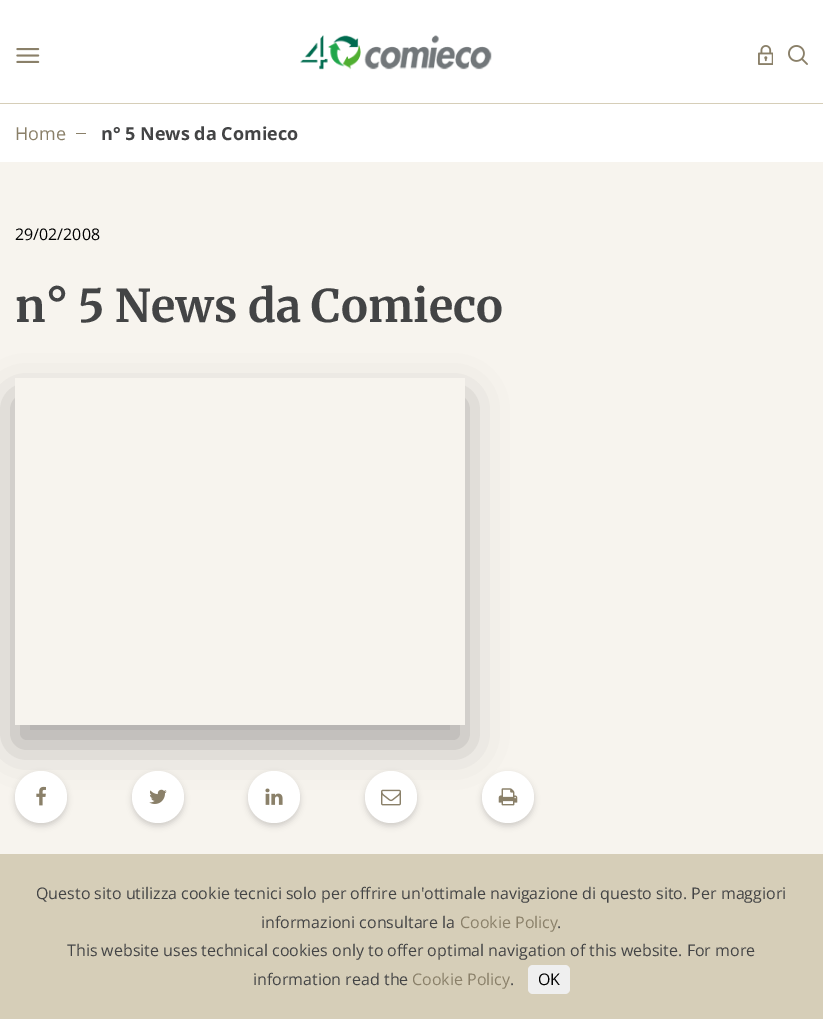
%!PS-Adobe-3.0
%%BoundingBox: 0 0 823 1019
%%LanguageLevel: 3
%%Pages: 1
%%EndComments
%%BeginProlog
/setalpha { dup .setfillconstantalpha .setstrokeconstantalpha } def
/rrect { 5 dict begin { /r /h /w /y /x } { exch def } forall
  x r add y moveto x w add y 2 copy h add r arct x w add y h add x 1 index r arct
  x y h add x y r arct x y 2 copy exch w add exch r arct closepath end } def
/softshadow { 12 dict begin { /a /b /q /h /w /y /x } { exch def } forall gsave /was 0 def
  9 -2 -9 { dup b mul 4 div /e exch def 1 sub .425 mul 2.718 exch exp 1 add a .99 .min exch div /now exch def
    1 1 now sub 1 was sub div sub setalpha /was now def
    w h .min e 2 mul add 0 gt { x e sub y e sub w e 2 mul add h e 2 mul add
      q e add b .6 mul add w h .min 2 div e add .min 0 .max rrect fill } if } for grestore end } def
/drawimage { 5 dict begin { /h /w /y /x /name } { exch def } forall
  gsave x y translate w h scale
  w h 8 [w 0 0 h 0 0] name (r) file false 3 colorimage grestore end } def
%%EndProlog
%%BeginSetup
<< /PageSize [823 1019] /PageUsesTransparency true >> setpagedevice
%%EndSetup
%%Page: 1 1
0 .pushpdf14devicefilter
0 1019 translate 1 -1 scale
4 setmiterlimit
1 setgray
0 0 823 1019 rectfill
0.839 0.808 0.722 setrgbcolor
0 103 823 1 rectfill
(images/1.raw) 16 48 24 15 drawimage
(images/2.raw) 300 35 192 35 drawimage
(images/3.raw) 758 45 15 20 drawimage
(images/4.raw) 788 45 20 20 drawimage
0.541 0.502 0.412 setrgbcolor
76 133 10 1 rectfill
0.969 0.957 0.933 setrgbcolor
0 162 823 692 rectfill
gsave
newpath 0 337 moveto 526 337 lineto 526 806 lineto 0 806 lineto closepath 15 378 moveto 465 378 lineto 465 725 lineto 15 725 lineto closepath eoclip newpath
0 setgray
15 398 450 347 0 20 0.3 softshadow
grestore
0 setgray
15 774 52 52 26 3 0.16 softshadow
1 setgray
newpath 41 797 26 0 360 arc closepath fill
(images/5.raw) 36 786 10 20 drawimage
0 setgray
132 774 52 52 26 3 0.16 softshadow
1 setgray
newpath 158 797 26 0 360 arc closepath fill
(images/6.raw) 149 789 18 15 drawimage
0 setgray
248 774 52 52 26 3 0.16 softshadow
1 setgray
newpath 274 797 26 0 360 arc closepath fill
(images/7.raw) 265 788 18 17 drawimage
0 setgray
365 774 52 52 26 3 0.16 softshadow
1 setgray
newpath 391 797 26 0 360 arc closepath fill
(images/8.raw) 381 789 20 17 drawimage
0 setgray
482 774 52 52 26 3 0.16 softshadow
1 setgray
newpath 508 797 26 0 360 arc closepath fill
(images/9.raw) 498 788 20 18 drawimage
0.839 0.808 0.722 setrgbcolor
0 854 823 165 rectfill
0.937 setgray
528 965 42 29 5 rrect fill
/OpenSans-Regular [18 0 0 -18 0 0] selectfont
0.541 0.502 0.412 setrgbcolor
15 140 moveto (Home) show
/OpenSans-Bold [18 0 0 -18 0 0] selectfont
0.263 0.267 0.271 setrgbcolor
101 140 moveto (n° 5 News da Comieco) show
/OpenSans-Regular [16 0 0 -16 0 0] selectfont
0.004 setgray
15 240 moveto (29/02/2008) show
/Merriweather-Bold [45 0 0 -45 0 0] selectfont
0.263 0.267 0.271 setrgbcolor
15 322 moveto (n° 5 News da Comieco) show
/OpenSans-Regular [16 0 0 -16 0 0] selectfont
36 899 moveto (Questo sito utilizza cookie tecnici solo per offrire un'ottimale navigazione di questo sito. Per maggiori) show
261 928 moveto (informazioni consultare la) show
0.541 0.502 0.412 setrgbcolor
460 928 moveto (Cookie Policy) show
0.263 0.267 0.271 setrgbcolor
557 928 moveto (.) show
67 956 moveto (This website uses technical cookies only to offer optimal navigation of this website. For more) show
253 985 moveto (information read the) show
0.541 0.502 0.412 setrgbcolor
412 985 moveto (Cookie Policy) show
0.263 0.267 0.271 setrgbcolor
510 985 moveto (.) show
0.004 setgray
538 985 moveto (OK) show
.poppdf14devicefilter showpage
%%EOF
